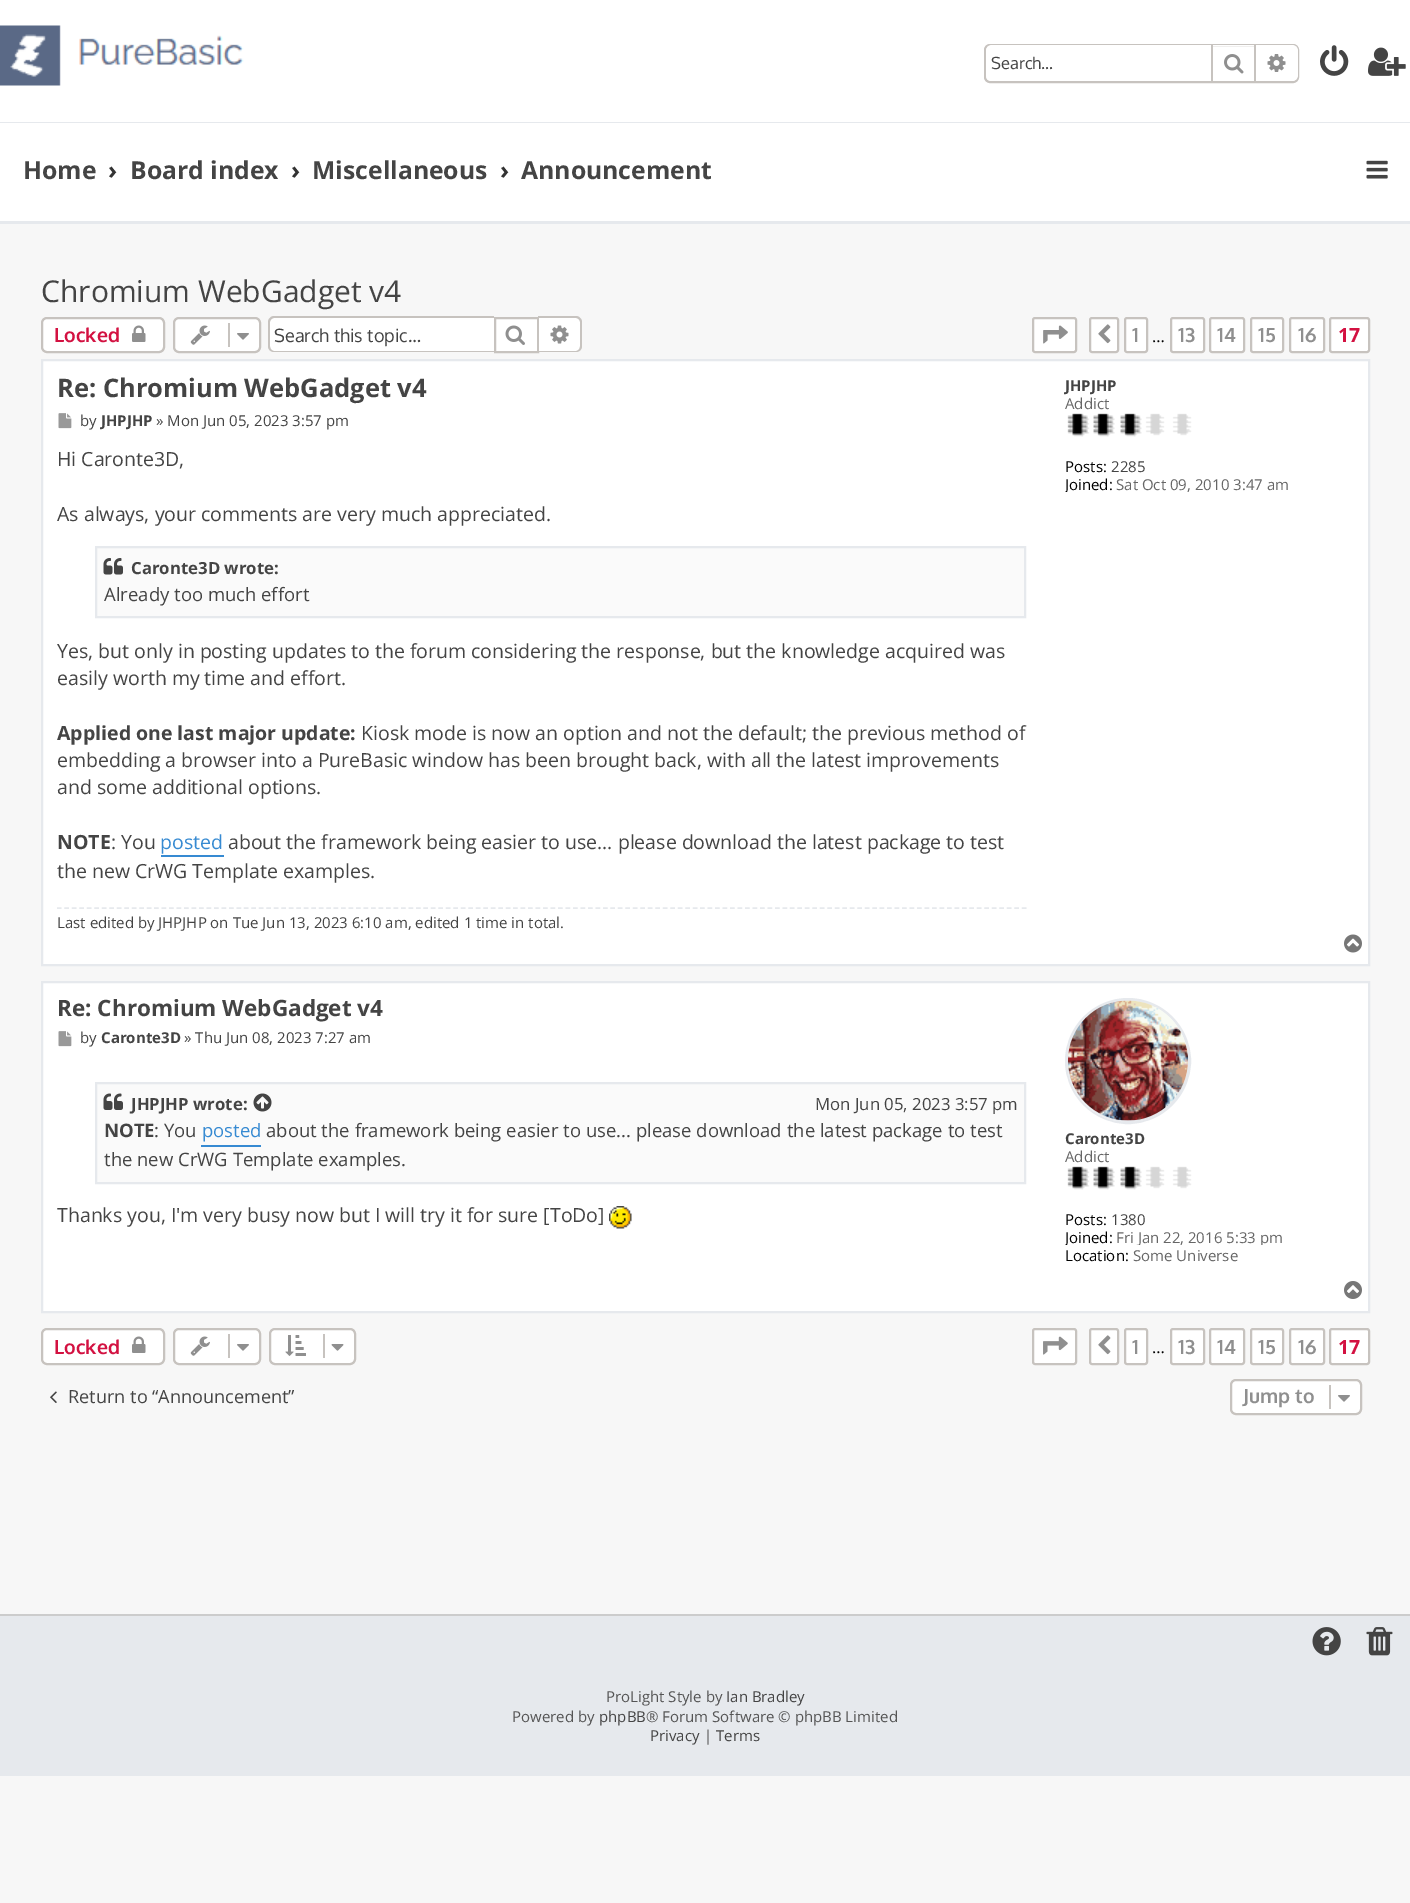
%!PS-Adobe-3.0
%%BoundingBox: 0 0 1410 1903
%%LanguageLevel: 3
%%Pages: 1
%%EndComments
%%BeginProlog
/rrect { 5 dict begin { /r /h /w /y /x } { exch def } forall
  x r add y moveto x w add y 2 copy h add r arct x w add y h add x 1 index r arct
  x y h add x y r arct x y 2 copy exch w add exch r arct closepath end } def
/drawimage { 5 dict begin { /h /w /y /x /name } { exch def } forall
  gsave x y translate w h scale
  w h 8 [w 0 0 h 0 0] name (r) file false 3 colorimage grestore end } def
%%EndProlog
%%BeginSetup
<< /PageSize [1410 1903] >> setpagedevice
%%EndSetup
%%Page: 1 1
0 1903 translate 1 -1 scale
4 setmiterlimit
0.969 setgray
0 0 1410 1903 rectfill
1 setgray
0 0 1410 122 rectfill
0.902 0.914 0.929 setrgbcolor
0 122 1410 1 rectfill
(images/1.raw) 0 25 244 61 drawimage
0.78 0.765 0.749 setrgbcolor
2 setlinewidth
985 45 313 37 5 rrect stroke
1 setgray
newpath 992 45 moveto 1211 45 lineto 1211 81 lineto 992 81 lineto 988.5 81 986 78.5 986 75 curveto 986 51 lineto 986 47.5 988.5 45 992 45 curveto closepath fill
1213 45 41 1 rectfill
0.78 0.765 0.749 setrgbcolor
1254 45 2 36 rectfill
1211 45 2 36 rectfill
(images/2.raw) 1224 54 20 20 drawimage
1 setgray
newpath 1256 45 moveto 1292 45 lineto 1295.5 45 1298 47.5 1298 51 curveto 1298 75 lineto 1298 78.5 1295.5 81 1292 81 curveto 1256 81 lineto closepath fill
(images/3.raw) 1267 54 19 18 drawimage
(images/4.raw) 1320 45 29 31 drawimage
(images/5.raw) 1368 47 38 29 drawimage
0 123 1410 98 rectfill
0.902 0.914 0.929 setrgbcolor
0 221 1410 3 rectfill
(images/6.raw) 1366 160 22 19 drawimage
1 setgray
42 318 122 34 5 rrect gsave fill grestore
0.78 0.765 0.749 setrgbcolor
stroke
(images/7.raw) 132 325 14 17 drawimage
1 setgray
174 318 86 34 5 rrect gsave fill grestore
0.78 0.765 0.749 setrgbcolor
stroke
(images/8.raw) 190 325 20 20 drawimage
228 323 2 24 rectfill
(images/9.raw) 237 333 12 7 drawimage
1 setgray
newpath 275 318 moveto 494 318 lineto 494 351 lineto 275 351 lineto 272 351 270 349 270 346 curveto 270 323 lineto 270 320 272 318 275 318 curveto closepath fill
0.78 0.765 0.749 setrgbcolor
newpath 274 316 moveto 494 316 lineto 494 352 lineto 274 352 lineto 271 352 268 350 268 346 curveto 268 322 lineto 268 319 271 316 274 316 curveto closepath 274 318 moveto 494 318 lineto 494 351 lineto 274 351 lineto 272 351 270 349 270 346 curveto 270 322 lineto 270 320 272 318 274 318 curveto closepath eofill
1 setgray
newpath 495 318 moveto 538 318 lineto 538 352 lineto 495 352 lineto closepath gsave fill grestore
0.78 0.765 0.749 setrgbcolor
stroke
(images/10.raw) 505 325 20 20 drawimage
1 setgray
newpath 539 318 moveto 576 318 lineto 579 318 581 320 581 323 curveto 581 346 lineto 581 349 579 351 576 351 curveto 539 351 lineto closepath fill
0.78 0.765 0.749 setrgbcolor
newpath 538 316 moveto 576 316 lineto 579 316 582 319 582 322 curveto 582 346 lineto 582 350 579 352 576 352 curveto 538 352 lineto closepath 538 318 moveto 576 318 lineto 578 318 580 320 580 322 curveto 580 346 lineto 580 349 578 351 576 351 curveto 538 351 lineto closepath eofill
(images/11.raw) 550 325 19 19 drawimage
1 setgray
1033 318 43 34 2 rrect gsave fill grestore
0.78 0.765 0.749 setrgbcolor
stroke
(images/12.raw) 1043 325 25 19 drawimage
1 setgray
1090 318 28 34 2 rrect gsave fill grestore
0.78 0.765 0.749 setrgbcolor
stroke
(images/13.raw) 1098 324 13 20 drawimage
1 setgray
1125 318 22 34 2 rrect gsave fill grestore
0.78 0.765 0.749 setrgbcolor
stroke
1 setgray
1171 318 33 34 2 rrect gsave fill grestore
0.78 0.765 0.749 setrgbcolor
stroke
1 setgray
1210 318 34 34 2 rrect gsave fill grestore
0.78 0.765 0.749 setrgbcolor
stroke
1 setgray
1251 318 32 34 2 rrect gsave fill grestore
0.78 0.765 0.749 setrgbcolor
stroke
1 setgray
1290 318 34 34 2 rrect gsave fill grestore
0.78 0.765 0.749 setrgbcolor
stroke
1 setgray
1330 318 39 34 2 rrect gsave fill grestore
0.78 0.765 0.749 setrgbcolor
stroke
1 setgray
newpath 42 360 moveto 1369 360 lineto 1369 965 lineto 42 965 lineto closepath gsave fill grestore
0.902 0.914 0.929 setrgbcolor
stroke
(images/14.raw) 58 413 14 16 drawimage
0.98 setgray
newpath 96 547 moveto 1025 547 lineto 1025 617 lineto 96 617 lineto closepath gsave fill grestore
0.902 0.914 0.929 setrgbcolor
stroke
(images/15.raw) 103 558 20 17 drawimage
0.212 0.541 0.824 setrgbcolor
161 855 63 2 rectfill
0.902 0.914 0.929 setrgbcolor
1.5 setlinewidth
[4.5 2.98] 0 setdash
newpath 57 908 moveto 1027.5 908 lineto stroke
(images/16.raw) 1067 413 125 24 drawimage
(images/17.raw) 1344 934 18 19 drawimage
1 setgray
newpath 42 982 moveto 1369 982 lineto 1369 1312 lineto 42 1312 lineto closepath gsave fill grestore
0.902 0.914 0.929 setrgbcolor
2 setlinewidth
[] 0 setdash
stroke
(images/14.raw) 58 1031 14 16 drawimage
0.98 setgray
newpath 96 1083 moveto 1025 1083 lineto 1025 1183 lineto 96 1183 lineto closepath gsave fill grestore
0.902 0.914 0.929 setrgbcolor
stroke
(images/18.raw) 103 1093 20 17 drawimage
(images/19.raw) 253 1093 19 19 drawimage
0.212 0.541 0.824 setrgbcolor
201 1145 60 2 rectfill
(images/20.raw) 609 1206 23 23 drawimage
0.902 0.914 0.929 setrgbcolor
newpath 1128 1061 62 0 360 arc closepath stroke
newpath 1128.5 1060.5 60.5 0 360 arc closepath stroke
(images/21.raw) 1068 1000 120 121 drawimage
(images/16.raw) 1067 1166 125 24 drawimage
(images/22.raw) 1344 1281 18 18 drawimage
1 setgray
42 1329 122 35 5 rrect gsave fill grestore
0.78 0.765 0.749 setrgbcolor
stroke
(images/7.raw) 132 1336 14 17 drawimage
1 setgray
174 1329 86 35 5 rrect gsave fill grestore
0.78 0.765 0.749 setrgbcolor
stroke
(images/8.raw) 190 1336 20 20 drawimage
228 1334 2 24 rectfill
(images/9.raw) 237 1344 12 7 drawimage
1 setgray
270 1329 85 35 5 rrect gsave fill grestore
0.78 0.765 0.749 setrgbcolor
stroke
(images/23.raw) 285 1335 21 21 drawimage
323 1334 2 24 rectfill
(images/24.raw) 331 1344 13 7 drawimage
1 setgray
1033 1329 43 35 2 rrect gsave fill grestore
0.78 0.765 0.749 setrgbcolor
stroke
(images/25.raw) 1043 1336 25 19 drawimage
1 setgray
1090 1329 28 35 2 rrect gsave fill grestore
0.78 0.765 0.749 setrgbcolor
stroke
(images/13.raw) 1098 1335 13 20 drawimage
1 setgray
1125 1329 22 35 2 rrect gsave fill grestore
0.78 0.765 0.749 setrgbcolor
stroke
1 setgray
1171 1329 33 35 2 rrect gsave fill grestore
0.78 0.765 0.749 setrgbcolor
stroke
1 setgray
1210 1329 34 35 2 rrect gsave fill grestore
0.78 0.765 0.749 setrgbcolor
stroke
1 setgray
1251 1329 32 35 2 rrect gsave fill grestore
0.78 0.765 0.749 setrgbcolor
stroke
1 setgray
1290 1329 34 35 2 rrect gsave fill grestore
0.78 0.765 0.749 setrgbcolor
stroke
1 setgray
1330 1329 39 35 2 rrect gsave fill grestore
0.78 0.765 0.749 setrgbcolor
stroke
(images/26.raw) 50 1391 7 12 drawimage
1 setgray
1231 1380 130 34 5 rrect gsave fill grestore
0.78 0.765 0.749 setrgbcolor
stroke
1329 1385 2 24 rectfill
(images/9.raw) 1338 1395 12 7 drawimage
0.902 0.914 0.929 setrgbcolor
0 1616 1410 160 rectfill
0.8 setgray
0 1614 1410 2 rectfill
(images/27.raw) 1312 1627 29 29 drawimage
(images/28.raw) 1366 1627 27 29 drawimage
/Oxygen-Regular [16.5 0 0 -16.5 0 0] selectfont
0.267 setgray
991 69 moveto (Search…) show
/OpenSans-Bold [24.75 0 0 -24.75 0 0] selectfont
23 179 moveto (Home) show
0.2 setgray
108 179 moveto (›) show
0.267 setgray
130 179 moveto (Board index) show
0.2 setgray
291 179 moveto (›) show
0.267 setgray
312 179 moveto (Miscellaneous) show
0.2 setgray
500 179 moveto (›) show
0.267 setgray
521 179 moveto (Announcement) show
/OpenSans-Regular [30 0 0 -30 0 0] selectfont
41 302 moveto (Chromium WebGadget v4) show
/Oxygen-Bold [19.5 0 0 -19.5 0 0] selectfont
0.827 0.067 0.255 setrgbcolor
54 342 moveto (Locked) show
/Oxygen-Regular [18.1 0 0 -18.1 0 0] selectfont
0.267 setgray
274 342 moveto (Search this topic…) show
/Oxygen-Bold [19.5 0 0 -19.5 0 0] selectfont
0.561 setgray
1132 342 moveto (1) show
/OpenSans-Regular [16.5 0 0 -16.5 0 0] selectfont
0 setgray
1152 342 moveto (…) show
/Oxygen-Bold [19.5 0 0 -19.5 0 0] selectfont
0.561 setgray
1178 342 moveto (13) show
1217 342 moveto (14) show
1258 342 moveto (15) show
1298 342 moveto (16) show
/OpenSans-Bold [19.5 0 0 -19.5 0 0] selectfont
0.827 0.067 0.255 setrgbcolor
1338 342 moveto (17) show
/OpenSans-Bold [25.5 0 0 -25.5 0 0] selectfont
0.267 setgray
57 397 moveto (Re: Chromium WebGadget v4) show
/OpenSans-Regular [15 0 0 -15 0 0] selectfont
80 426 moveto (by) show
/OpenSans-Bold [15 0 0 -15 0 0] selectfont
101 426 moveto (JHPJHP) show
/OpenSans-Regular [15 0 0 -15 0 0] selectfont
156 426 moveto (» Mon Jun 05, 2023 3:57 pm) show
/OpenSans-Regular [19.5 0 0 -19.5 0 0] selectfont
57 466 moveto (Hi Caronte3D,) show
57 521 moveto (As always, your comments are very much appreciated.) show
/OpenSans-Bold [16.75 0 0 -16.75 0 0] selectfont
131 574 moveto (Caronte3D wrote:) show
/OpenSans-Regular [18.5 0 0 -18.5 0 0] selectfont
104 601 moveto (Already too much effort) show
/OpenSans-Regular [19.5 0 0 -19.5 0 0] selectfont
57 658 moveto (Yes, but only in posting updates to the forum considering the response, but the knowledge acquired was) show
57 685 moveto (easily worth my time and effort.) show
/OpenSans-Bold [19.5 0 0 -19.5 0 0] selectfont
57 740 moveto (Applied one last major update:) show
/OpenSans-Regular [19.5 0 0 -19.5 0 0] selectfont
361 740 moveto (Kiosk mode is now an option and not the default; the previous method of) show
57 767 moveto (embedding a browser into a PureBasic window has been brought back, with all the latest improvements) show
57 794 moveto (and some additional options.) show
/OpenSans-Bold [19.5 0 0 -19.5 0 0] selectfont
57 849 moveto (NOTE) show
/OpenSans-Regular [19.5 0 0 -19.5 0 0] selectfont
111 849 moveto (: You) show
0.212 0.541 0.824 setrgbcolor
160 849 moveto (posted) show
0.267 setgray
228 849 moveto (about the framework being easier to use... please download the latest package to test) show
57 878 moveto (the new CrWG Template examples.) show
/OpenSans-Regular [15 0 0 -15 0 0] selectfont
57 928 moveto (Last edited by JHPJHP on Tue Jun 13, 2023 6:10 am, edited 1 time in total.) show
/OpenSans-Bold [15 0 0 -15 0 0] selectfont
1065 391 moveto (JHPJHP) show
/OpenSans-Regular [15 0 0 -15 0 0] selectfont
0.4 setgray
1065 409 moveto (Addict) show
0 setgray
1065 472 moveto (Posts:) show
0.267 setgray
1111 472 moveto (2285) show
gsave
1065 474 288 18 rectclip
0 setgray
1065 490 moveto (Joined:) show
grestore
0.4 setgray
1116 490 moveto (Sat Oct 09, 2010 3:47 am) show
/OpenSans-Bold [22.5 0 0 -22.5 0 0] selectfont
0.267 setgray
57 1016 moveto (Re: Chromium WebGadget v4) show
/OpenSans-Regular [15 0 0 -15 0 0] selectfont
80 1043 moveto (by) show
/OpenSans-Bold [15 0 0 -15 0 0] selectfont
101 1043 moveto (Caronte3D) show
/OpenSans-Regular [15 0 0 -15 0 0] selectfont
184 1043 moveto (» Thu Jun 08, 2023 7:27 am) show
/OpenSans-Bold [16.75 0 0 -16.75 0 0] selectfont
131 1110 moveto (JHPJHP wrote:) show
/OpenSans-Regular [16.75 0 0 -16.75 0 0] selectfont
815 1110 moveto (Mon Jun 05, 2023 3:57 pm) show
/OpenSans-Bold [18.5 0 0 -18.5 0 0] selectfont
104 1137 moveto (NOTE) show
/OpenSans-Regular [18.5 0 0 -18.5 0 0] selectfont
154 1137 moveto (: You) show
0.212 0.541 0.824 setrgbcolor
202 1137 moveto (posted) show
0.267 setgray
266 1137 moveto (about the framework being easier to use... please download the latest package to test) show
104 1166 moveto (the new CrWG Template examples.) show
/OpenSans-Regular [19.5 0 0 -19.5 0 0] selectfont
57 1222 moveto (Thanks you, I'm very busy now but I will try it for sure [ToDo]) show
/OpenSans-Bold [15 0 0 -15 0 0] selectfont
1065 1144 moveto (Caronte3D) show
/OpenSans-Regular [15 0 0 -15 0 0] selectfont
0.4 setgray
1065 1162 moveto (Addict) show
0 setgray
1065 1225 moveto (Posts:) show
0.267 setgray
1111 1225 moveto (1380) show
gsave
1065 1227 288 18 rectclip
0 setgray
1065 1243 moveto (Joined:) show
0.4 setgray
1116 1243 moveto (Fri Jan 22, 2016 5:33 pm) show
grestore
0 setgray
1065 1261 moveto (Location:) show
0.4 setgray
1133 1261 moveto (Some Universe) show
/Oxygen-Bold [19.5 0 0 -19.5 0 0] selectfont
0.827 0.067 0.255 setrgbcolor
54 1354 moveto (Locked) show
0.561 setgray
1132 1354 moveto (1) show
/OpenSans-Regular [16.5 0 0 -16.5 0 0] selectfont
0 setgray
1152 1353 moveto (…) show
/Oxygen-Bold [19.5 0 0 -19.5 0 0] selectfont
0.561 setgray
1178 1354 moveto (13) show
1217 1354 moveto (14) show
1258 1354 moveto (15) show
1298 1354 moveto (16) show
/OpenSans-Bold [19.5 0 0 -19.5 0 0] selectfont
0.827 0.067 0.255 setrgbcolor
1338 1354 moveto (17) show
/OpenSans-Regular [18.1 0 0 -18.1 0 0] selectfont
0.267 setgray
68 1403 moveto (Return to “Announcement”) show
/Oxygen-Bold [19.5 0 0 -19.5 0 0] selectfont
0.561 setgray
1243 1403 moveto (Jump to) show
/OpenSans-Regular [15 0 0 -15 0 0] selectfont
0.333 setgray
606 1702 moveto (ProLight Style by) show
0.267 setgray
726 1702 moveto (Ian Bradley) show
0.333 setgray
512 1722 moveto (Powered by) show
0.267 setgray
599 1722 moveto (phpBB) show
0.333 setgray
646 1722 moveto (® Forum Software © phpBB Limited) show
0.267 setgray
650 1741 moveto (Privacy) show
0.333 setgray
704 1741 moveto (|) show
0.267 setgray
716 1741 moveto (Terms) show
showpage
%%EOF
